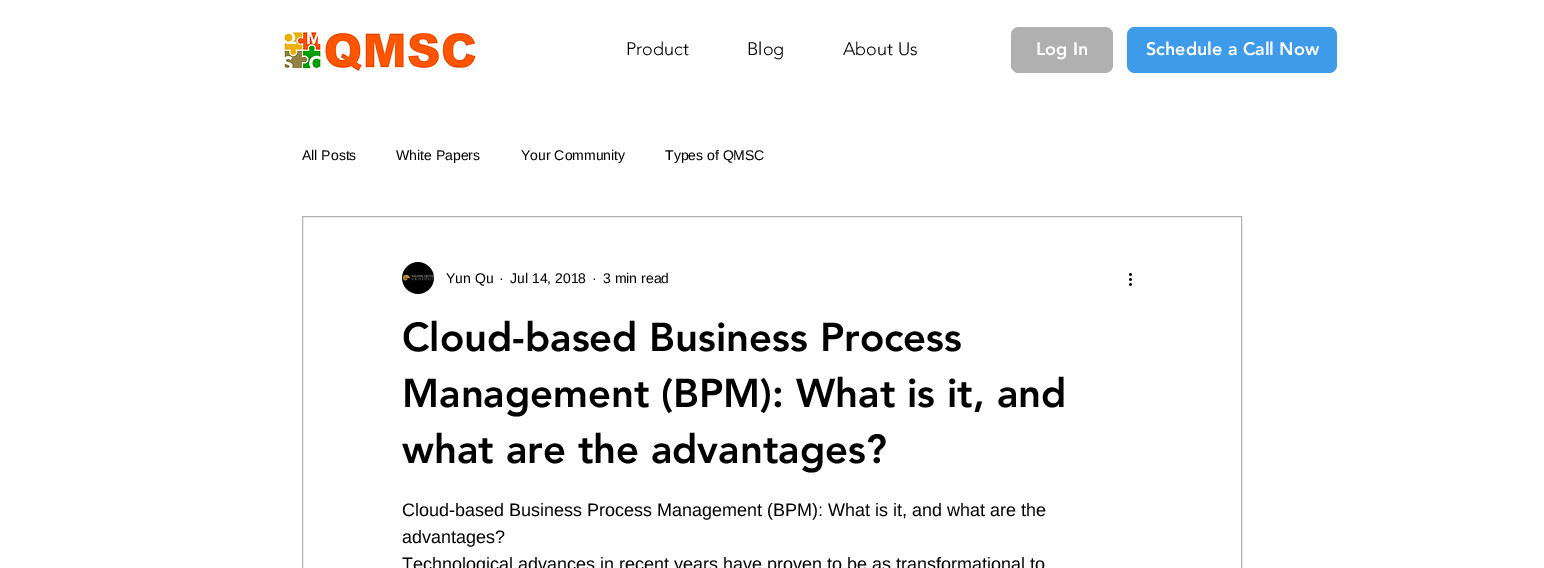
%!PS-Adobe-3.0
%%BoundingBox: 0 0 1544 568
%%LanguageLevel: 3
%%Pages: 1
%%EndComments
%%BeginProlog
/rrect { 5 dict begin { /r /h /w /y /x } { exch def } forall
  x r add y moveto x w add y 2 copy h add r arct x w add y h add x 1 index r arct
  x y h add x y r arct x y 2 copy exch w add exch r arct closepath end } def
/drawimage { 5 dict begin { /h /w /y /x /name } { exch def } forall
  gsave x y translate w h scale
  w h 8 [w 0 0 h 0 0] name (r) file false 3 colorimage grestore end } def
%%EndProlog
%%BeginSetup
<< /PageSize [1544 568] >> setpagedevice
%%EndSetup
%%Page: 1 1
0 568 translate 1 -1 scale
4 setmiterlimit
1 setgray
0 0 1544 568 rectfill
(images/1.raw) 284 32 192 39 drawimage
0.69 setgray
1011 27 102 46 8 rrect fill
0.239 0.608 0.914 setrgbcolor
1127 27 210 46 8 rrect fill
0.702 setgray
302.5 216.5 939 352 rectstroke
(images/2.raw) 402 262 32 32 drawimage
(images/3.raw) 1129 273 3 13 drawimage
/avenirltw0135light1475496-Light [18 0 0 -18 0 0] selectfont
0 setgray
626 55 moveto (Product) show
747 55 moveto (Blog) show
843 55 moveto (About Us) show
/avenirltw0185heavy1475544-Black [18 0 0 -18 0 0] selectfont
1 setgray
1036 55 moveto (Log In) show
1146 55 moveto (Schedule a Call Now) show
/LiberationSans-Regular [14 0 0 -14 0 0] selectfont
0 setgray
302 160 moveto (All Posts) show
396 160 moveto (White Papers) show
521 160 moveto (Your Community) show
665 160 moveto (Types of QMSC) show
446 283 moveto (Yun Qu) show
499 283 moveto (·) show
510 283 moveto (Jul 14, 2018) show
592 283 moveto (·) show
603 283 moveto (3 min read) show
/avenirltw0185heavy1475544-Black [40 0 0 -40 0 0] selectfont
402 351 moveto (Cloud-based Business Process) show
402 407 moveto (Management \(BPM\): What is it, and) show
402 463 moveto (what are the advantages?) show
/LiberationSans-Regular [18 0 0 -18 0 0] selectfont
402 516 moveto (Cloud-based Business Process Management \(BPM\): What is it, and what are the) show
402 543 moveto (advantages?) show
402 570 moveto (Technological advances in recent years have proven to be as transformational to) show
showpage
%%EOF
